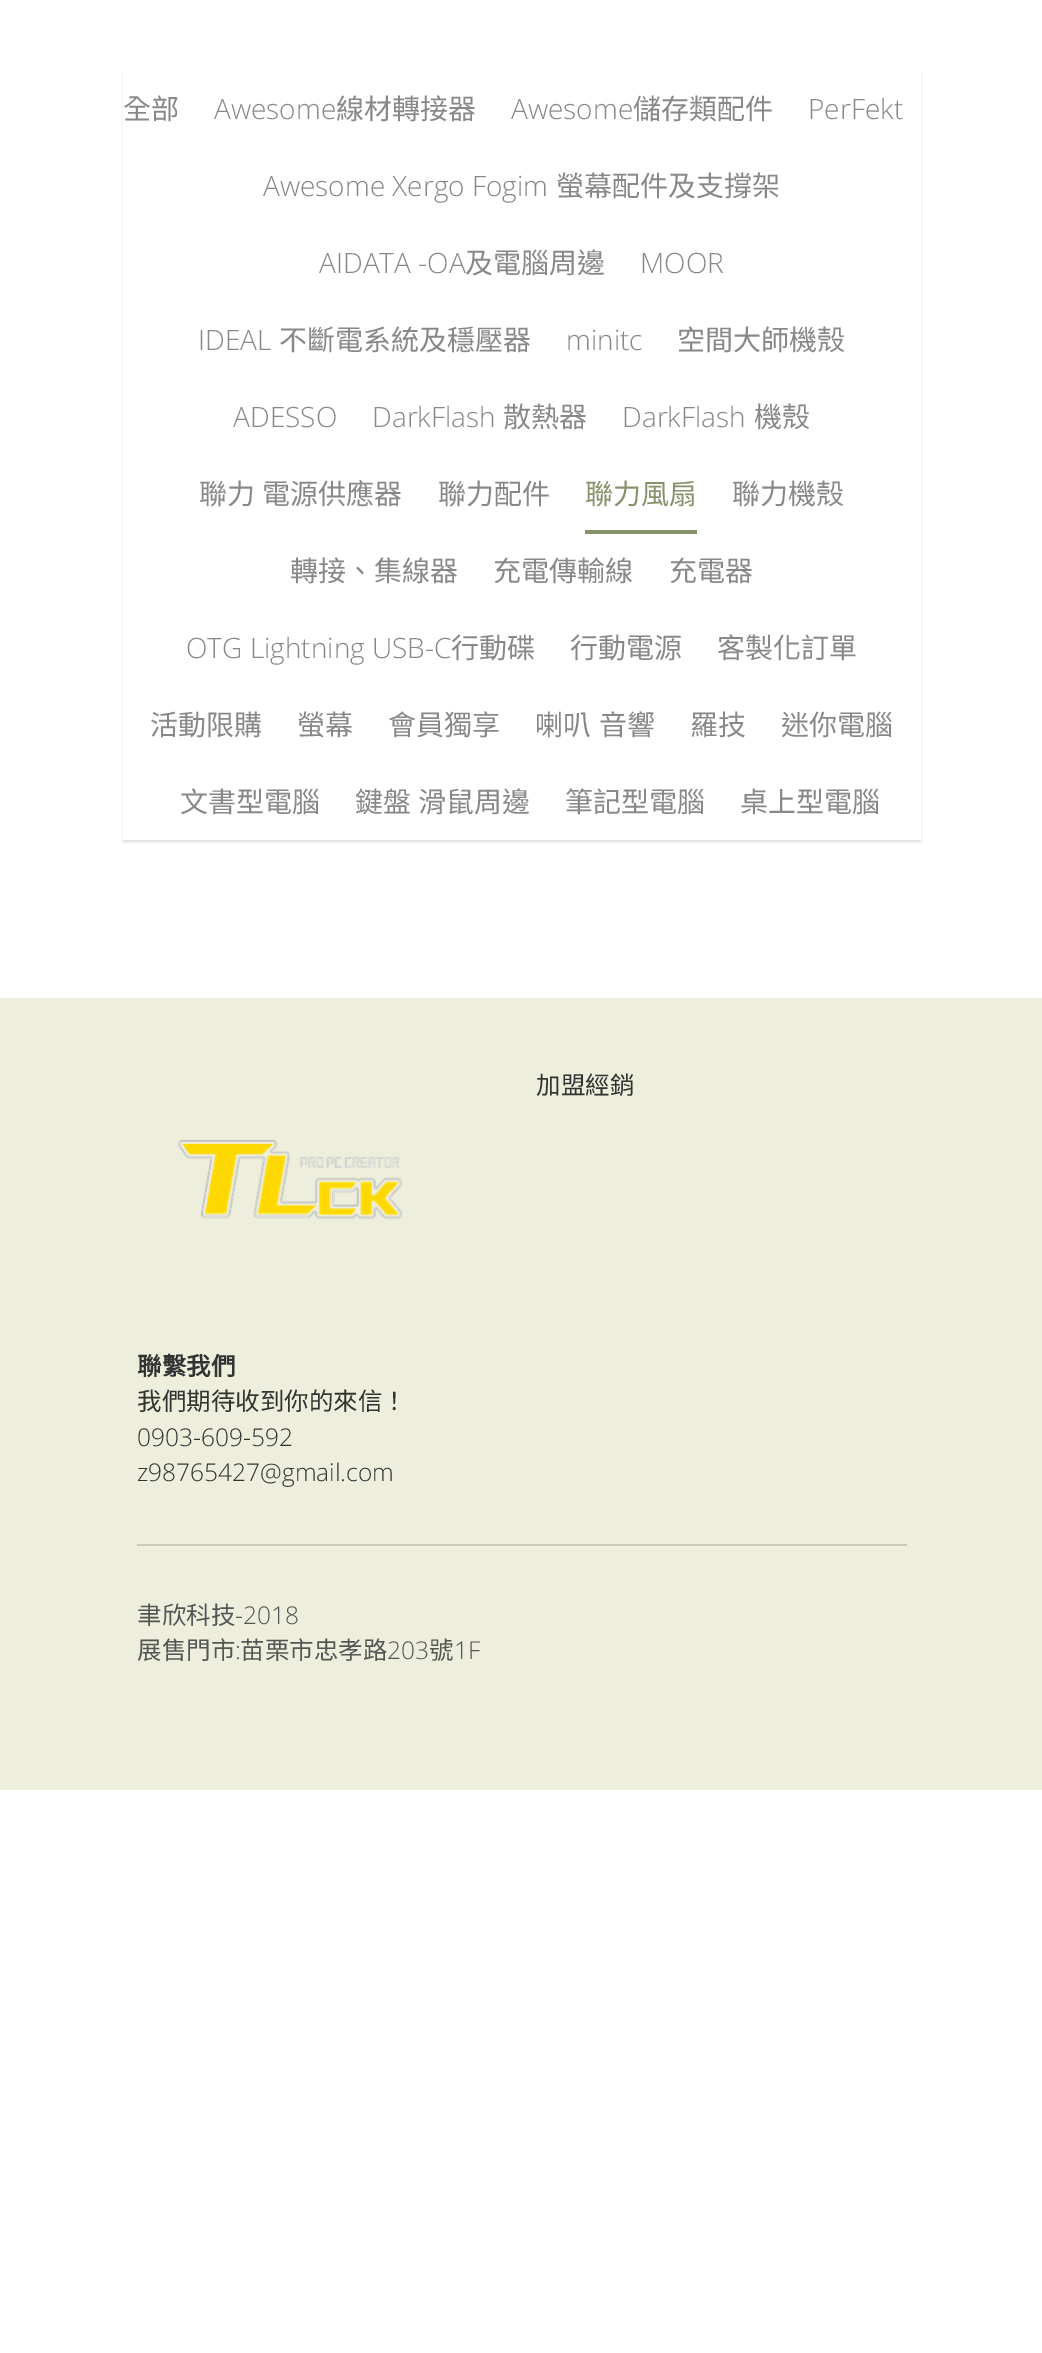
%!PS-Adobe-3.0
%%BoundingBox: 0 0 1042 2353
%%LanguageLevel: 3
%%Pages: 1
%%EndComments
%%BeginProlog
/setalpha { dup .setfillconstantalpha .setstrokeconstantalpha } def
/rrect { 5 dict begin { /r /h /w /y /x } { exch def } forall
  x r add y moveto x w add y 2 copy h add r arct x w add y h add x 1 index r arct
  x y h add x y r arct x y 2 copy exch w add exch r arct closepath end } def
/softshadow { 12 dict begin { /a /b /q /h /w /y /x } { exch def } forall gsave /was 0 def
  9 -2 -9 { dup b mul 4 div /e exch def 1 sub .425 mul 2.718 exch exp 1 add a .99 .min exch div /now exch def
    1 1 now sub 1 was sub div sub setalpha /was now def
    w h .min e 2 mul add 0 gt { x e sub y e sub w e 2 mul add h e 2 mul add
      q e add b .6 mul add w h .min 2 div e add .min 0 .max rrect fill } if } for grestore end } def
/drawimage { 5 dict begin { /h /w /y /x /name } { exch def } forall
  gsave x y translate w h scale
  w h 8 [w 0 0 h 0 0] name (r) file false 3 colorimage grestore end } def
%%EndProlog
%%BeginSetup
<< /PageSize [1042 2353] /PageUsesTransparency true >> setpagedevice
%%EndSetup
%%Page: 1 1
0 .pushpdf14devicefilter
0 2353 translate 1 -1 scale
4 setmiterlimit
1 setgray
0 0 1042 2353 rectfill
gsave
newpath 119 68 moveto 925 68 lineto 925 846 lineto 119 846 lineto closepath 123 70 moveto 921 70 lineto 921 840 lineto 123 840 lineto closepath eoclip newpath
0 setgray
123 72 798 770 0 1 0.12 softshadow
grestore
0.525 0.573 0.424 setrgbcolor
585 530 112 4 rectfill
0.933 0.933 0.863 setrgbcolor
0 998 1042 792 rectfill
(images/1.raw) 178 1139 225 81 drawimage
0.792 0.792 0.733 setrgbcolor
137 1544 770 2 rectfill
/NotoSansCJKTC-Regular [28 0 0 -28 0 0] selectfont
0.533 setgray
123 119 moveto (全部) show
/OpenSans-Light [28 0 0 -28 0 0] selectfont
214 119 moveto (Awesome) show
/NotoSansCJKTC-Regular [28 0 0 -28 0 0] selectfont
336 119 moveto (線材轉接器) show
/OpenSans-Light [28 0 0 -28 0 0] selectfont
511 119 moveto (Awesome) show
/NotoSansCJKTC-Regular [28 0 0 -28 0 0] selectfont
633 119 moveto (儲存類配件) show
/OpenSans-Light [28 0 0 -28 0 0] selectfont
808 119 moveto (PerFekt) show
263 196 moveto (Awesome Xergo Fogim) show
/NotoSansCJKTC-Regular [28 0 0 -28 0 0] selectfont
556 196 moveto (螢幕配件及支撐架) show
/OpenSans-Light [28 0 0 -28 0 0] selectfont
319 273 moveto (AIDATA -OA) show
/NotoSansCJKTC-Regular [28 0 0 -28 0 0] selectfont
465 273 moveto (及電腦周邊) show
/OpenSans-Light [28 0 0 -28 0 0] selectfont
640 273 moveto (MOOR) show
198 350 moveto (IDEAL) show
/NotoSansCJKTC-Regular [28 0 0 -28 0 0] selectfont
279 350 moveto (不斷電系統及穩壓器) show
/OpenSans-Light [28 0 0 -28 0 0] selectfont
566 350 moveto (minitc) show
/NotoSansCJKTC-Regular [28 0 0 -28 0 0] selectfont
677 350 moveto (空間大師機殼) show
/OpenSans-Light [28 0 0 -28 0 0] selectfont
233 427 moveto (ADESSO) show
372 427 moveto (DarkFlash) show
/NotoSansCJKTC-Regular [28 0 0 -28 0 0] selectfont
503 427 moveto (散熱器) show
/OpenSans-Light [28 0 0 -28 0 0] selectfont
622 427 moveto (DarkFlash) show
/NotoSansCJKTC-Regular [28 0 0 -28 0 0] selectfont
754 427 moveto (機殼) show
199 504 moveto 1 0 32 (聯力 電源供應器) widthshow
438 504 moveto (聯力配件) show
0.525 0.573 0.424 setrgbcolor
585 504 moveto (聯力風扇) show
0.533 setgray
732 504 moveto (聯力機殼) show
290 581 moveto (轉接、集線器) show
493 581 moveto (充電傳輸線) show
669 581 moveto (充電器) show
/OpenSans-Light [28 0 0 -28 0 0] selectfont
186 658 moveto (OTG Lightning USB-C) show
/NotoSansCJKTC-Regular [28 0 0 -28 0 0] selectfont
451 658 moveto (行動碟) show
570 658 moveto (行動電源) show
717 658 moveto (客製化訂單) show
150 735 moveto (活動限購) show
297 735 moveto (螢幕) show
388 735 moveto (會員獨享) show
535 735 moveto (喇叭) show
599 735 moveto (音響) show
690 735 moveto (羅技) show
781 735 moveto (迷你電腦) show
180 812 moveto (文書型電腦) show
355 812 moveto (鍵盤) show
418 812 moveto (滑鼠周邊) show
565 812 moveto (筆記型電腦) show
740 812 moveto (桌上型電腦) show
/NotoSansCJKTC-Regular [24.5 0 0 -24.5 0 0] selectfont
0.2 setgray
536 1094 moveto (加盟經銷) show
/NotoSansCJKTC-Bold [24.5 0 0 -24.5 0 0] selectfont
137 1375 moveto (聯繫我們) show
/NotoSansCJKTC-Regular [24.5 0 0 -24.5 0 0] selectfont
137 1410 moveto (我們期待收到你的來信！) show
/OpenSans-Light [24.5 0 0 -24.5 0 0] selectfont
137 1446 moveto (0903-609-592) show
137 1481 moveto (z98765427@gmail.com) show
/NotoSansCJKTC-Regular [24.5 0 0 -24.5 0 0] selectfont
0.333 setgray
137 1624 moveto (聿欣科技) show
/OpenSans-Light [24.5 0 0 -24.5 0 0] selectfont
235 1624 moveto (-2018) show
/NotoSansCJKTC-Regular [24.5 0 0 -24.5 0 0] selectfont
137 1659 moveto (展售門市) show
/OpenSans-Light [24.5 0 0 -24.5 0 0] selectfont
235 1659 moveto (:) show
/NotoSansCJKTC-Regular [24.5 0 0 -24.5 0 0] selectfont
240 1659 moveto (苗栗市忠孝路) show
/OpenSans-Light [24.5 0 0 -24.5 0 0] selectfont
387 1659 moveto (203) show
/NotoSansCJKTC-Regular [24.5 0 0 -24.5 0 0] selectfont
429 1659 moveto (號) show
/OpenSans-Light [24.5 0 0 -24.5 0 0] selectfont
454 1659 moveto (1F) show
.poppdf14devicefilter showpage
%%EOF
